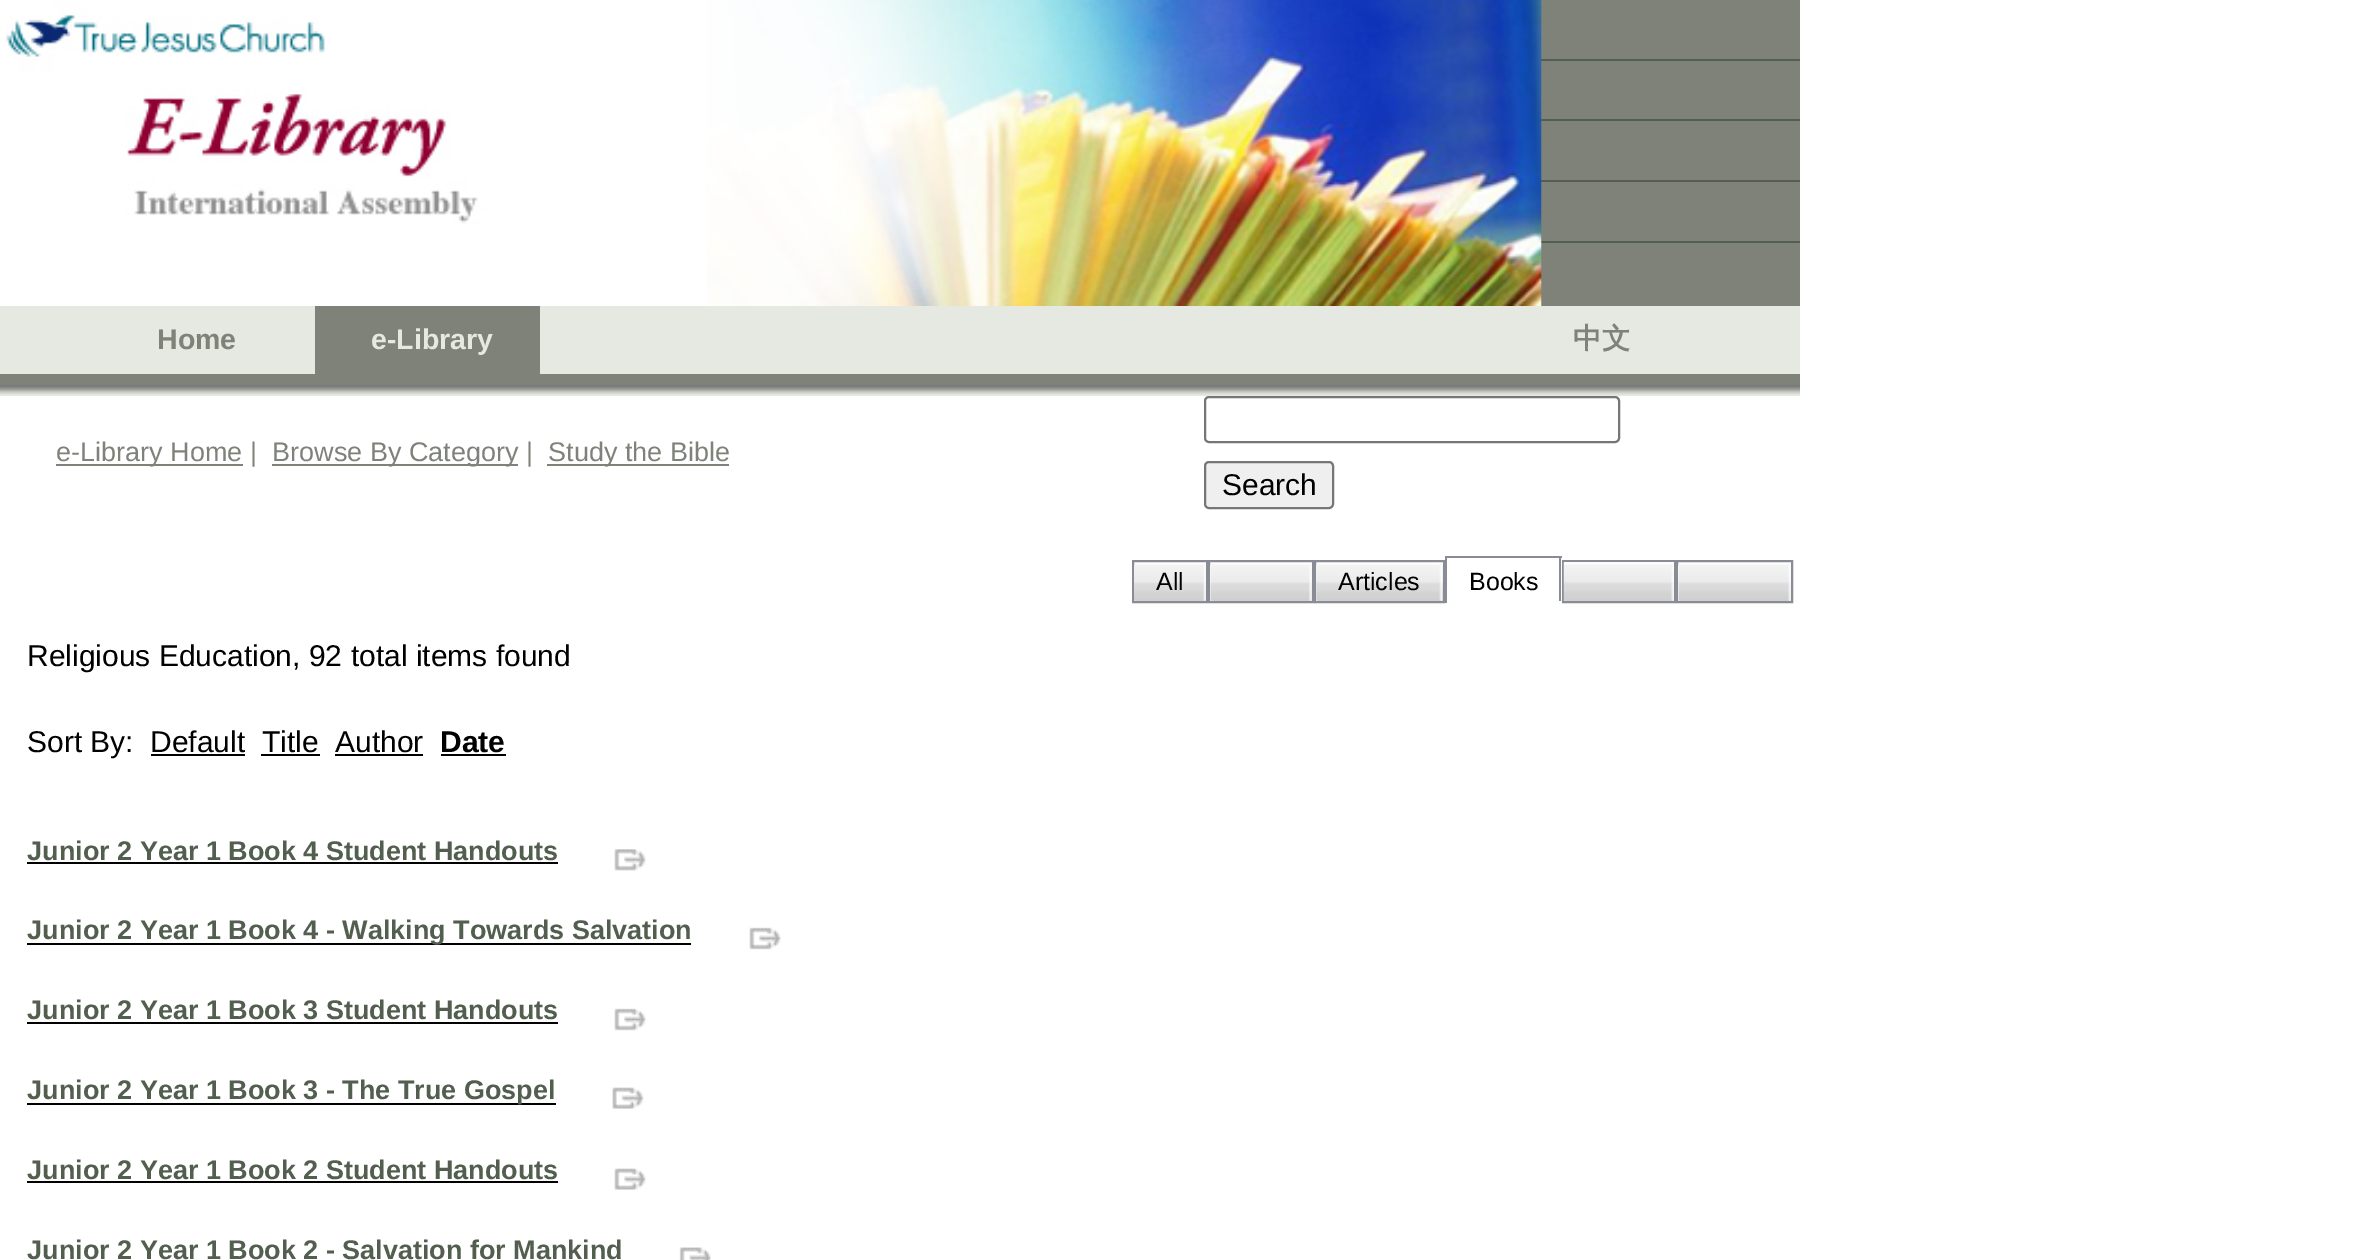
%!PS-Adobe-3.0
%%BoundingBox: 0 0 2356 1260
%%LanguageLevel: 3
%%Pages: 1
%%EndComments
%%BeginProlog
/rrect { 5 dict begin { /r /h /w /y /x } { exch def } forall
  x r add y moveto x w add y 2 copy h add r arct x w add y h add x 1 index r arct
  x y h add x y r arct x y 2 copy exch w add exch r arct closepath end } def
/drawimage { 5 dict begin { /h /w /y /x /name } { exch def } forall
  gsave x y translate w h scale
  w h 8 [w 0 0 h 0 0] name (r) file false 3 colorimage grestore end } def
%%EndProlog
%%BeginSetup
<< /PageSize [2356 1260] >> setpagedevice
%%EndSetup
%%Page: 1 1
0 1260 translate 1 -1 scale
4 setmiterlimit
1 setgray
0 0 2356 1260 rectfill
0.494 0.51 0.475 setrgbcolor
1541 0 259 306 rectfill
0.322 0.373 0.31 setrgbcolor
1541 59 259 2 rectfill
1541 119 259 2 rectfill
1541 180 259 2 rectfill
1541 241 259 2 rectfill
(images/1.raw) 6 0 1536 306 drawimage
0.902 0.914 0.886 setrgbcolor
0 306 1800 68 rectfill
0.494 0.51 0.475 setrgbcolor
315 306 225 68 rectfill
0 374 1800 11 rectfill
(images/2.raw) 0 385 1800 11 drawimage
56 464 187 2 rectfill
272 464 246 2 rectfill
547 464 182 2 rectfill
0.463 setgray
2 setlinewidth
1205 397 414 45 4 rrect stroke
0.937 setgray
1205 462 128 46 4 rrect gsave fill grestore
0.463 setgray
stroke
(images/3.raw) 1134 564 72 37 drawimage
0.537 0.549 0.584 setrgbcolor
1133 561 74 41 rectstroke
(images/4.raw) 1134 565 72 36 drawimage
(images/5.raw) 1210 564 102 37 drawimage
1209 561 104 41 rectstroke
(images/6.raw) 1210 565 102 36 drawimage
(images/7.raw) 1316 564 127 37 drawimage
1315 561 129 41 rectstroke
(images/8.raw) 1316 565 127 36 drawimage
1445 556 117 2 rectfill
1559 556 2 47 rectfill
1 setgray
1559 601 3 2 rectfill
0.537 0.549 0.584 setrgbcolor
1445 556 2 47 rectfill
(images/9.raw) 1564 600 110 1 drawimage
1563 561 112 41 rectstroke
(images/10.raw) 1563 562 111 39 drawimage
(images/11.raw) 1678 564 113 37 drawimage
1677 561 115 41 rectstroke
(images/12.raw) 1678 565 113 36 drawimage
0 setgray
151 754 94 2 rectfill
261 754 59 2 rectfill
335 754 88 2 rectfill
441 754 65 2 rectfill
27 862 531 2 rectfill
(images/13.raw) 614 849 32 22 drawimage
27 943 664 2 rectfill
(images/14.raw) 749 927 32 23 drawimage
27 1022 531 2 rectfill
(images/14.raw) 614 1008 32 23 drawimage
27 1103 529 2 rectfill
(images/15.raw) 612 1087 32 22 drawimage
27 1181 531 2 rectfill
(images/16.raw) 614 1168 32 22 drawimage
(images/17.raw) 679 1247 32 13 drawimage
/LiberationSans-Bold [28.5 0 0 -28.5 0 0] selectfont
0.494 0.51 0.475 setrgbcolor
157 349 moveto (Home) show
0.902 0.914 0.886 setrgbcolor
371 349 moveto (e-Library) show
/WenQuanYiZenHei-Bold [28.5 0 0 -28.5 0 0] selectfont
0.494 0.51 0.475 setrgbcolor
1573 348 moveto (中文) show
/LiberationSans-Regular [27 0 0 -27 0 0] selectfont
56 461 moveto (e-Library Home |) show
272 461 moveto (Browse By Category |) show
548 461 moveto (Study the Bible) show
/LiberationSans-Regular [30 0 0 -30 0 0] selectfont
0 setgray
1222 495 moveto (Search) show
/LiberationSans-Regular [25 0 0 -25 0 0] selectfont
1156 590 moveto (All) show
1338 590 moveto (Articles) show
1469 590 moveto (Books) show
/LiberationSans-Regular [30 0 0 -30 0 0] selectfont
27 666 moveto (Religious Education, 92 total items found) show
27 752 moveto (Sort By:) show
150 752 moveto (Default) show
262 752 moveto (Title) show
335 752 moveto (Author) show
/LiberationSans-Bold [30 0 0 -30 0 0] selectfont
440 752 moveto (Date) show
/LiberationSans-Bold [27 0 0 -27 0 0] selectfont
0.322 0.373 0.31 setrgbcolor
27 860 moveto (Junior 2 Year 1 Book 4 Student Handouts) show
27 939 moveto (Junior 2 Year 1 Book 4 - Walking Towards Salvation) show
27 1019 moveto (Junior 2 Year 1 Book 3 Student Handouts) show
27 1099 moveto (Junior 2 Year 1 Book 3 - The True Gospel) show
27 1179 moveto (Junior 2 Year 1 Book 2 Student Handouts) show
27 1259 moveto (Junior 2 Year 1 Book 2 - Salvation for Mankind) show
showpage
%%EOF
